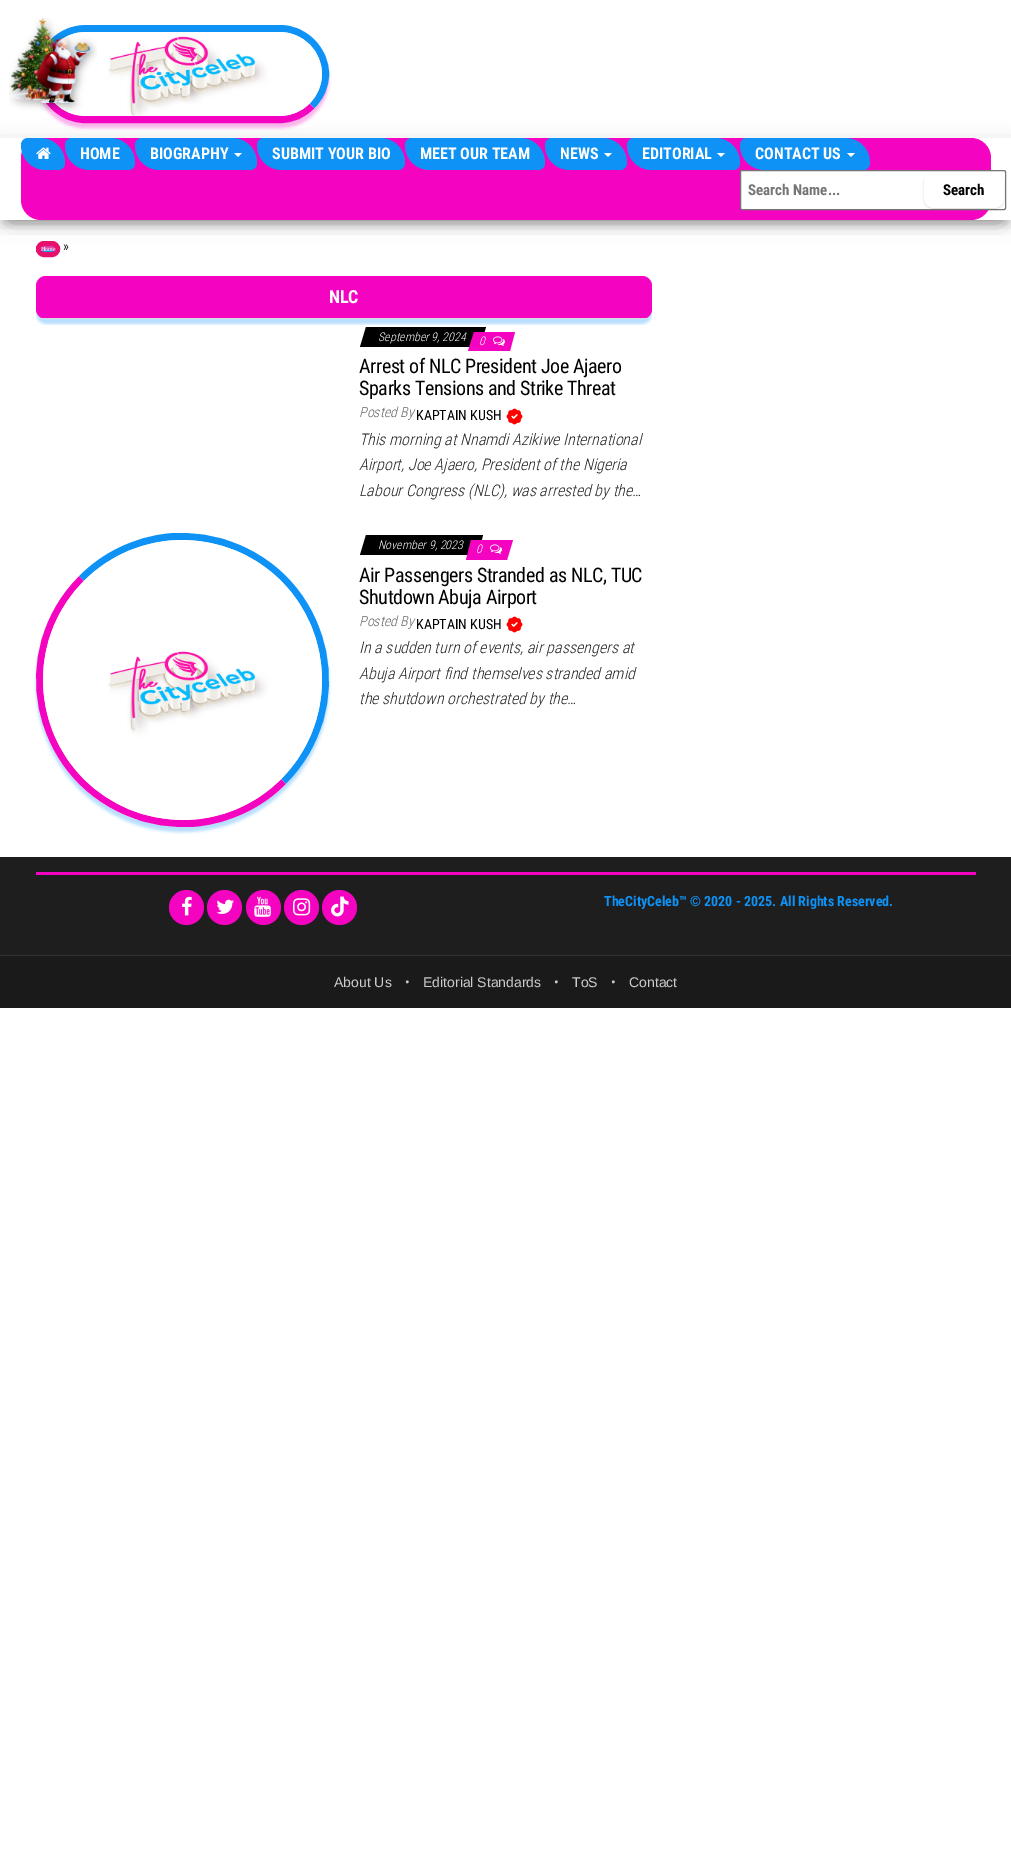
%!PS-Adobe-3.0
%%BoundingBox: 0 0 1011 1863
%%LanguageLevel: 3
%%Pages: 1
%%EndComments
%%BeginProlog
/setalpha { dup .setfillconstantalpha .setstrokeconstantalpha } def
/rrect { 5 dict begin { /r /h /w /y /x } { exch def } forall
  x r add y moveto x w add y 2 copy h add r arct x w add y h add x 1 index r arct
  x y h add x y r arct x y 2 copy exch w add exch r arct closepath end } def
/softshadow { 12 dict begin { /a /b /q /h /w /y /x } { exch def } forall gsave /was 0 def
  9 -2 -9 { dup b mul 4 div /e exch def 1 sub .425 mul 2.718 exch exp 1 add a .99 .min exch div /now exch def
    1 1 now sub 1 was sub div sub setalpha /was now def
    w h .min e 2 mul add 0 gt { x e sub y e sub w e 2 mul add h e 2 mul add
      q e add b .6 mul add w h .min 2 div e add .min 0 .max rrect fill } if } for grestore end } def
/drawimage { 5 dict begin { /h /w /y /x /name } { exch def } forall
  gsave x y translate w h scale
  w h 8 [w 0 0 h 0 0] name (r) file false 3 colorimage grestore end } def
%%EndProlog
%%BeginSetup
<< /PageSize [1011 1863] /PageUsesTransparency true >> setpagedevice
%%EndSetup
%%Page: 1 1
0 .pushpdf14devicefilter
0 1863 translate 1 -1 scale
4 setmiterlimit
1 setgray
0 0 1011 1863 rectfill
0.957 0.016 0.753 setrgbcolor
36 30 293 98 49 1.5 0.3 softshadow
0.055 0.573 0.961 setrgbcolor
7 setlinewidth
newpath 53 42 moveto 61.5 33.5 73 28.5 85 28.5 curveto 280 28.5 lineto 292 28.5 303.5 33.5 312 42 curveto 320.5 50.5 325.5 62 325.5 74 curveto 325.5 86 320.5 97.5 312 106 curveto stroke
gsave
36 241 24 16 8 rrect clip newpath
gsave newpath 36 246 moveto 60 246 lineto 60 252 lineto 36 252 lineto closepath clip newpath
<< /ShadingType 2 /ColorSpace /DeviceRGB /Coords [48 246 48 252] /Extend [true true] /Function << /FunctionType 3 /Domain [0 1] /Functions [<< /FunctionType 2 /Domain [0 1] /C0 [0.859 0.306 0.694] /C1 [0.859 0.306 0.694] /N 1 >> << /FunctionType 2 /Domain [0 1] /C0 [0.859 0.306 0.694] /C1 [0.055 0.573 0.961] /N 1 >>] /Bounds [0.45] /Encode [0 1 0 1] >> >> shfill grestore
grestore
0.91 0.063 0.427 setrgbcolor
5 setlinewidth
38.5 243.5 19 11 5.5 rrect stroke
gsave
newpath 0 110 moveto 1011 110 lineto 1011 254 lineto 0 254 lineto closepath 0 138 moveto 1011 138 lineto 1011 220 lineto 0 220 lineto closepath eoclip newpath
0 setgray
0 141 1011 82 0 10 0.12 softshadow
grestore
0.957 0.016 0.753 setrgbcolor
7 setlinewidth
newpath 312 106 moveto 303.5 114.5 292 119.5 280 119.5 curveto 85 119.5 lineto 73 119.5 61.5 114.5 53 106 curveto 44.5 97.5 39.5 86 39.5 74 curveto 39.5 62 44.5 50.5 53 42 curveto stroke
(images/2.raw) 49 32 273 84 drawimage
(images/1.raw) 9 18 88 94 drawimage
gsave
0 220 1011 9 rectclip
0 setgray
5 151 1001 72 0 5 0.2 softshadow
grestore
gsave
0 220 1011 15 rectclip
0 setgray
12 160 987 58 0 10 0.42 softshadow
grestore
21 138 970 82 20 rrect fill
0.055 0.573 0.961 setrgbcolor
newpath 28 138 moveto 40 138 lineto 54 138 65 149 65 163 curveto 65 167 62 170 58 170 curveto 46 170 lineto 32 170 21 159 21 145 curveto 21 141 24 138 28 138 curveto closepath fill
(images/3.raw) 36 147 15 12 drawimage
newpath 72 138 moveto 110 138 lineto 124 138 135 149 135 163 curveto 135 167 132 170 128 170 curveto 90 170 lineto 76 170 65 159 65 145 curveto 65 141 68 138 72 138 curveto closepath fill
newpath 142 138 moveto 232 138 lineto 246 138 257 149 257 163 curveto 257 167 254 170 250 170 curveto 160 170 lineto 146 170 135 159 135 145 curveto 135 141 138 138 142 138 curveto closepath fill
1 setgray
newpath 234 153 moveto 242 153 lineto 238 157 lineto closepath fill
0.055 0.573 0.961 setrgbcolor
newpath 264 138 moveto 380 138 lineto 394 138 405 149 405 163 curveto 405 167 402 170 398 170 curveto 282 170 lineto 268 170 257 159 257 145 curveto 257 141 260 138 264 138 curveto closepath fill
newpath 412 138 moveto 520 138 lineto 534 138 545 149 545 163 curveto 545 167 542 170 538 170 curveto 430 170 lineto 416 170 405 159 405 145 curveto 405 141 408 138 412 138 curveto closepath fill
newpath 552 138 moveto 602 138 lineto 616 138 627 149 627 163 curveto 627 167 624 170 620 170 curveto 570 170 lineto 556 170 545 159 545 145 curveto 545 141 548 138 552 138 curveto closepath fill
1 setgray
newpath 604 153 moveto 612 153 lineto 608 157 lineto closepath fill
0.055 0.573 0.961 setrgbcolor
newpath 634 138 moveto 715 138 lineto 729 138 740 149 740 163 curveto 740 167 737 170 733 170 curveto 652 170 lineto 638 170 627 159 627 145 curveto 627 141 630 138 634 138 curveto closepath fill
1 setgray
newpath 717 153 moveto 725 153 lineto 721 157 lineto closepath fill
0.055 0.573 0.961 setrgbcolor
newpath 747 138 moveto 845 138 lineto 859 138 870 149 870 163 curveto 870 167 867 170 863 170 curveto 765 170 lineto 751 170 740 159 740 145 curveto 740 141 743 138 747 138 curveto closepath fill
1 setgray
newpath 847 153 moveto 855 153 lineto 851 157 lineto closepath fill
740.5 170.5 265 39 1.5 rrect gsave fill grestore
0.463 setgray
1 setlinewidth
stroke
0 setgray
924 173 80 36 10 1 0.15 softshadow
1 setgray
924 172 80 36 10 rrect fill
gsave
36 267 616 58 rectclip
0.055 0.573 0.961 setrgbcolor
36 281 616 43 10 1.5 0.3 softshadow
grestore
0.957 0.016 0.753 setrgbcolor
36 276 616 43 10 rrect fill
0.851 setgray
41 318 606 1 rectfill
0 setgray
newpath 366 327 moveto 486 327 lineto 480 347 lineto 360 347 lineto closepath fill
0.957 0.016 0.753 setrgbcolor
newpath 474 332 moveto 515 332 lineto 510 351 lineto 468 351 lineto closepath fill
(images/4.raw) 493 336 12 10 drawimage
(images/5.raw) 506 408 17 17 drawimage
0.055 0.573 0.961 setrgbcolor
36 538 293 294 146.5 1.5 0.3 softshadow
7 setlinewidth
newpath 81.5 578.5 moveto 104.5 555 135.5 540.5 168.5 537 curveto 191.5 535 215.5 538.5 237 547.5 curveto 331.5 586.5 355.5 709.5 283.5 781.5 curveto stroke
0.957 0.016 0.753 setrgbcolor
newpath 283.5 781.5 moveto 260.5 805 229.5 819.5 196.5 823 curveto 173.5 825 149.5 821.5 128 812.5 curveto 33.5 773.5 9.5 650.5 81.5 578.5 curveto stroke
(images/6.raw) 43 540 279 280 drawimage
0 setgray
newpath 366 535 moveto 483 535 lineto 478 555 lineto 360 555 lineto closepath fill
0.957 0.016 0.753 setrgbcolor
newpath 471 540 moveto 513 540 lineto 507 560 lineto 466 560 lineto closepath fill
(images/4.raw) 490 544 12 10 drawimage
(images/5.raw) 506 616 17 17 drawimage
0.118 setgray
0 857 1011 98 rectfill
0.957 0.016 0.753 setrgbcolor
36 872 940 3 rectfill
newpath 186.5 907.5 17.5 0 360 arc closepath fill
(images/7.raw) 182 896 10 20 drawimage
newpath 224.5 907.5 17.5 0 360 arc closepath fill
(images/8.raw) 216 899 18 15 drawimage
newpath 263.5 907.5 17.5 0 360 arc closepath fill
(images/9.raw) 254 896 17 21 drawimage
newpath 301.5 907.5 17.5 0 360 arc closepath fill
(images/10.raw) 293 898 18 18 drawimage
newpath 339.5 907.5 17.5 0 360 arc closepath fill
(images/11.raw) 331 896 18 21 drawimage
0.102 setgray
0 956 1011 52 rectfill
0.2 setgray
0 955 1011 1 rectfill
/RobotoCondensed-Bold [16 0 0 -16 0 0] selectfont
1 setgray
80 159 moveto (HOME) show
150 159 moveto (BIOGRAPHY) show
272 159 moveto (SUBMIT YOUR BIO) show
420 159 moveto (MEET OUR TEAM) show
560 159 moveto (NEWS) show
642 159 moveto (EDITORIAL) show
755 159 moveto (CONTACT US) show
/RobotoCondensed-Bold [15 0 0 -15 0 0] selectfont
0.459 setgray
748 195 moveto (Search Name...) show
0 setgray
943 195 moveto (Search) show
/LiberationSerif-Regular [6 0 0 -6 0 0] selectfont
1 setgray
41 251 moveto (Home) show
/RobotoCondensed-Regular [14 0 0 -14 0 0] selectfont
0.133 setgray
63 251 moveto (») show
/RobotoCondensed-Bold [18 0 0 -18 0 0] selectfont
1 setgray
329 303 moveto -0.5 0 (NLC) ashow
/RobotoCondensed-LightItalic [12 0 0 -12 0 0] selectfont
378 341 moveto (September 9, 2024) show
479 345 moveto (0) show
/RobotoCondensed-Regular [20 0 0 -20 0 0] selectfont
0 setgray
359 373 moveto -0.4 0 (Arrest of NLC President Joe Ajaero) ashow
359 395 moveto -0.4 0 (Sparks Tensions and Strike Threat) ashow
/RobotoCondensed-LightItalic [14 0 0 -14 0 0] selectfont
0.392 setgray
359 417 moveto (Posted By) show
/RobotoCondensed-Regular [14 0 0 -14 0 0] selectfont
0 setgray
416 420 moveto (KAPTAIN KUSH) show
/RobotoCondensed-LightItalic [16 0 0 -16 0 0] selectfont
0.133 setgray
359 445 moveto (This morning at Nnamdi Azikiwe International) show
359 470 moveto (Airport, Joe Ajaero, President of the Nigeria) show
359 496 moveto (Labour Congress \(NLC\), was arrested by the…) show
/RobotoCondensed-LightItalic [12 0 0 -12 0 0] selectfont
1 setgray
378 549 moveto (November 9, 2023) show
476 553 moveto (0) show
/RobotoCondensed-Regular [20 0 0 -20 0 0] selectfont
0 setgray
359 582 moveto -0.4 0 (Air Passengers Stranded as NLC, TUC) ashow
359 604 moveto -0.4 0 (Shutdown Abuja Airport) ashow
/RobotoCondensed-LightItalic [14 0 0 -14 0 0] selectfont
0.392 setgray
359 626 moveto (Posted By) show
/RobotoCondensed-Regular [14 0 0 -14 0 0] selectfont
0 setgray
416 629 moveto (KAPTAIN KUSH) show
/RobotoCondensed-LightItalic [16 0 0 -16 0 0] selectfont
0.133 setgray
359 653 moveto (In a sudden turn of events, air passengers at) show
359 679 moveto (Abuja Airport find themselves stranded amid) show
359 704 moveto (the shutdown orchestrated by the…) show
/RobotoCondensed-Bold [14 0 0 -14 0 0] selectfont
0.055 0.573 0.961 setrgbcolor
604 906 moveto (TheCityCeleb™ © 2020 - 2025. All Rights Reserved.) show
/LiberationSans-Regular [14 0 0 -14 0 0] selectfont
0.8 setgray
334 987 moveto (About Us) show
/RobotoCondensed-Regular [14 0 0 -14 0 0] selectfont
405 987 moveto (•) show
/LiberationSans-Regular [14 0 0 -14 0 0] selectfont
423 987 moveto (Editorial Standards) show
/RobotoCondensed-Regular [14 0 0 -14 0 0] selectfont
554 987 moveto (•) show
/LiberationSans-Regular [14 0 0 -14 0 0] selectfont
572 987 moveto (ToS) show
/RobotoCondensed-Regular [14 0 0 -14 0 0] selectfont
611 987 moveto (•) show
/LiberationSans-Regular [14 0 0 -14 0 0] selectfont
629 987 moveto (Contact) show
.poppdf14devicefilter showpage
%%EOF
